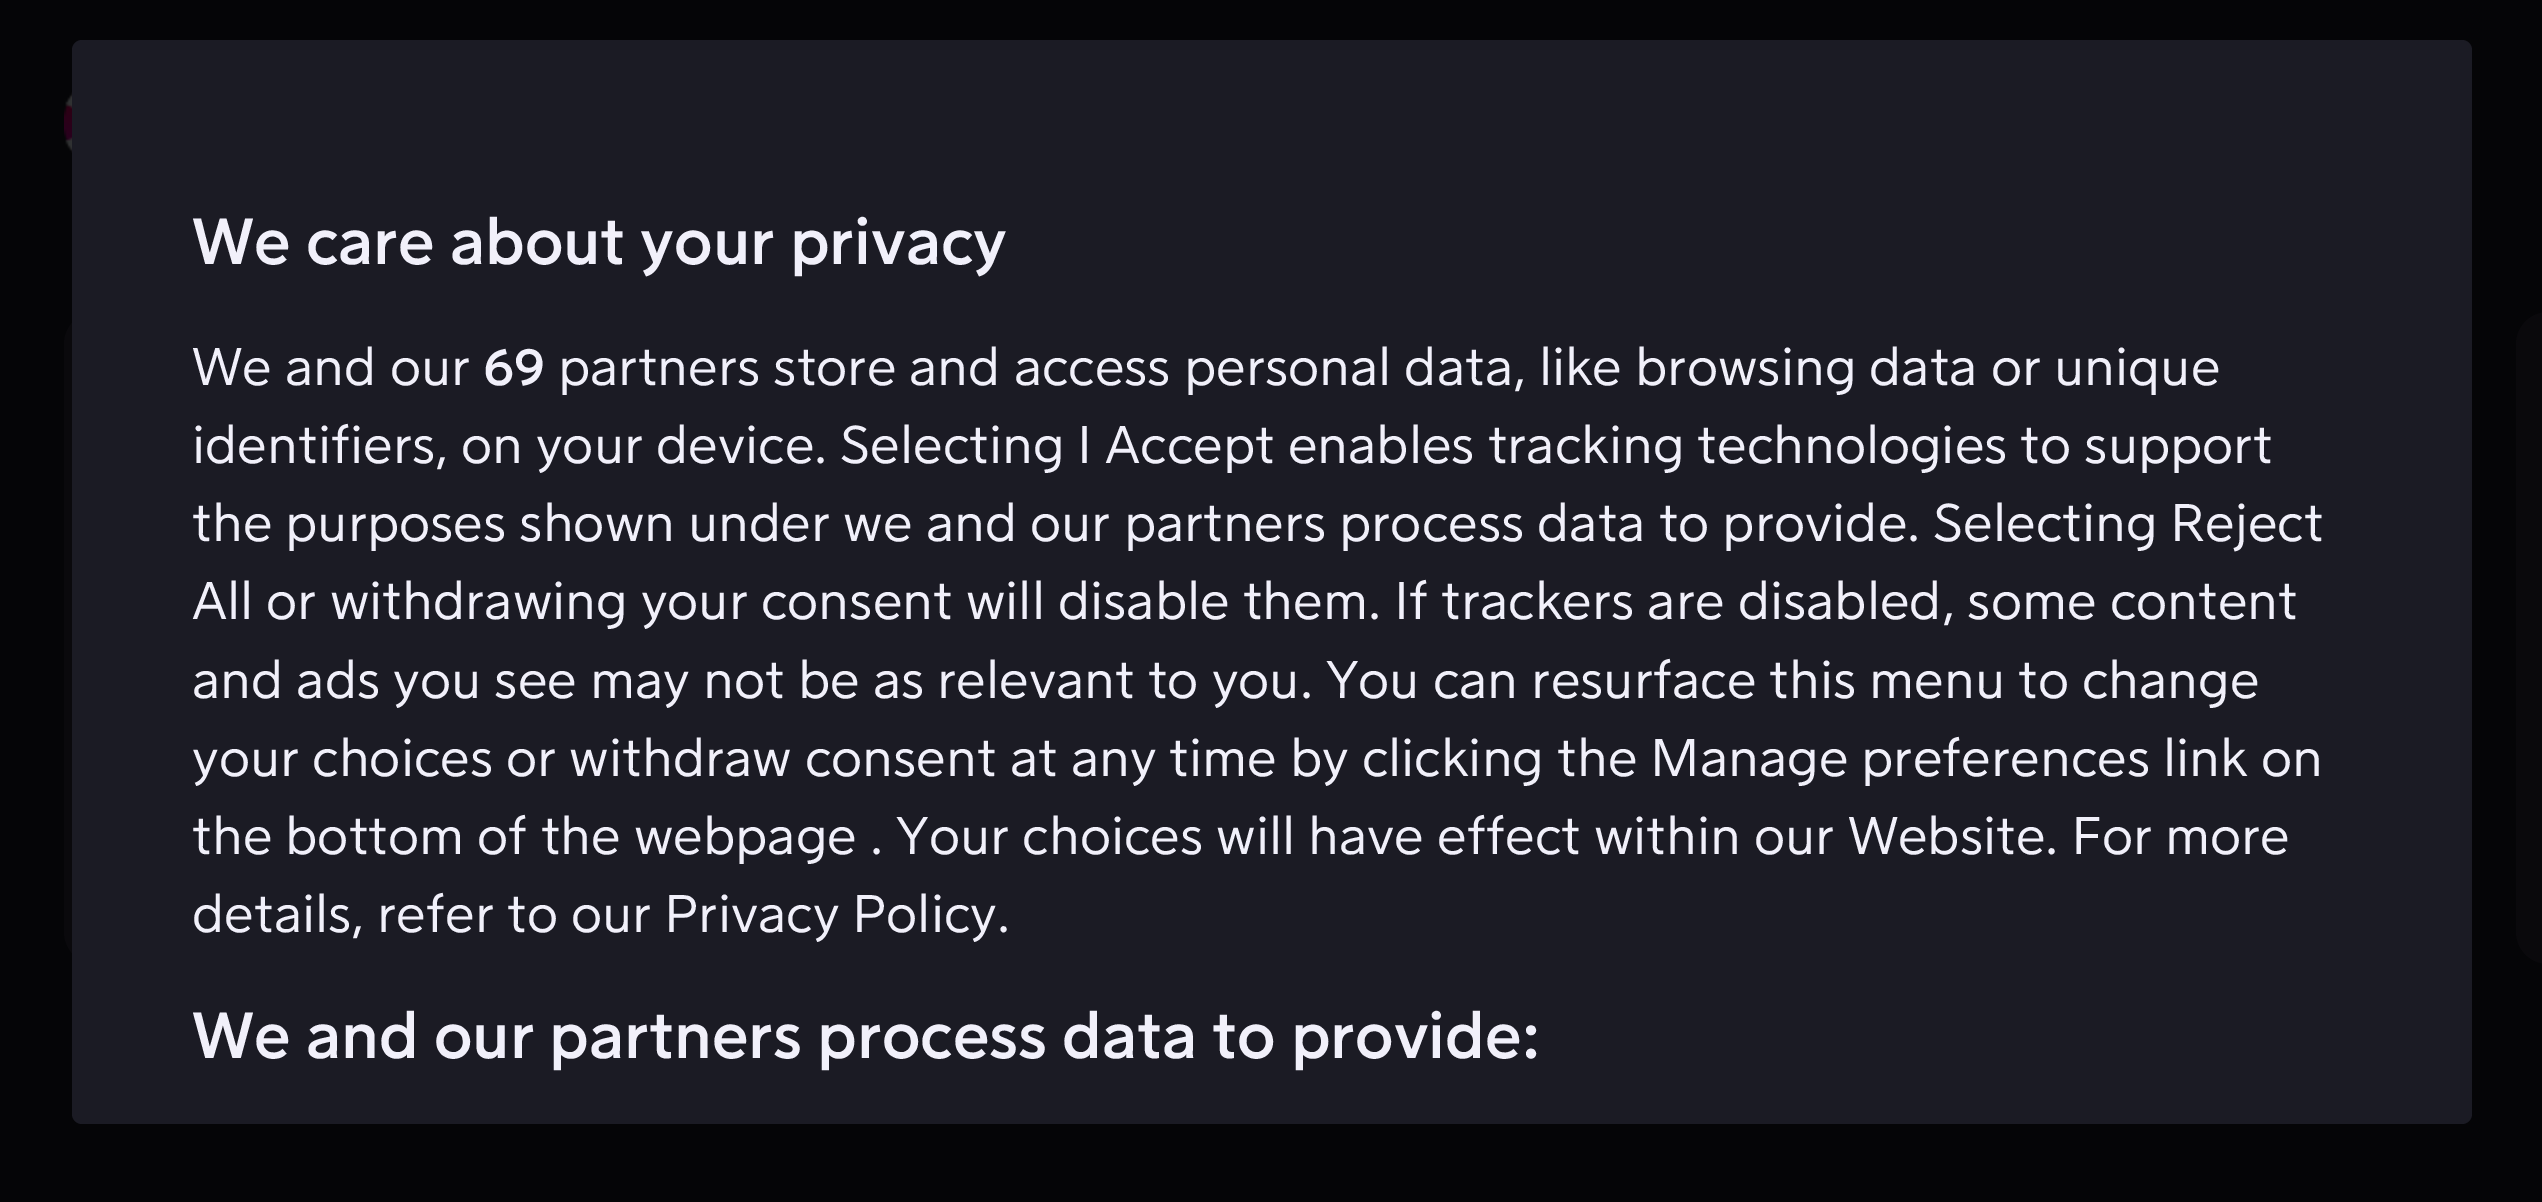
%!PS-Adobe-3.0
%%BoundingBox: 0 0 2542 1202
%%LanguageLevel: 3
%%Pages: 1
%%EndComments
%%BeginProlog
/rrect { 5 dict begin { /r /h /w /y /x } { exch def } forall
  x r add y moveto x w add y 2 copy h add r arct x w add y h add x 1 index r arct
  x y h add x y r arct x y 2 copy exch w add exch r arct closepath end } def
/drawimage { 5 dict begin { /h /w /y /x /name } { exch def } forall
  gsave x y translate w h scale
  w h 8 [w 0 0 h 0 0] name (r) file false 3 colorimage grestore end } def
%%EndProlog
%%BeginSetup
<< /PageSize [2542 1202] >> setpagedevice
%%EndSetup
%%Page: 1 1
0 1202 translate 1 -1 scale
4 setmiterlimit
0.02 0.02 0.027 setrgbcolor
0 0 2542 1202 rectfill
(images/1.raw) 64 92 8 61 drawimage
0.039 0.035 0.047 setrgbcolor
64 312 1164 652 32 rrect fill
newpath 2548 312 moveto 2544 312 lineto 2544 964 lineto 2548 964 lineto 2530.5 964 2516 949.5 2516 932 curveto 2516 344 lineto 2516 326.5 2530.5 312 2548 312 curveto closepath fill
0.106 0.106 0.141 setrgbcolor
72 40 2400 1084 10 rrect fill
/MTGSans-Bold [64 0 0 -64 0 0] selectfont
0.945 0.941 0.98 setrgbcolor
192 264 moveto (We care about your privacy) show
/MTGSans-Regular [52.05 0 0 -52.05 0 0] selectfont
192 385 moveto (We and our) show
/MTGSans-Bold [52.05 0 0 -52.05 0 0] selectfont
483 385 moveto (69) show
/MTGSans-Regular [52.05 0 0 -52.05 0 0] selectfont
558 385 moveto (partners store and access personal data, like browsing data or unique) show
192 463 moveto (identifiers, on your device. Selecting I Accept enables tracking technologies to support) show
192 541 moveto (the purposes shown under we and our partners process data to provide. Selecting Reject) show
192 619 moveto (All or withdrawing your consent will disable them. If trackers are disabled, some content) show
192 698 moveto (and ads you see may not be as relevant to you. You can resurface this menu to change) show
192 776 moveto (your choices or withdraw consent at any time by clicking the Manage preferences link on) show
192 854 moveto (the bottom of the webpage . Your choices will have effect within our Website. For more) show
192 932 moveto (details, refer to our Privacy Policy.) show
/MTGSans-Bold [64 0 0 -64 0 0] selectfont
192 1058 moveto (We and our partners process data to provide:) show
showpage
%%EOF
